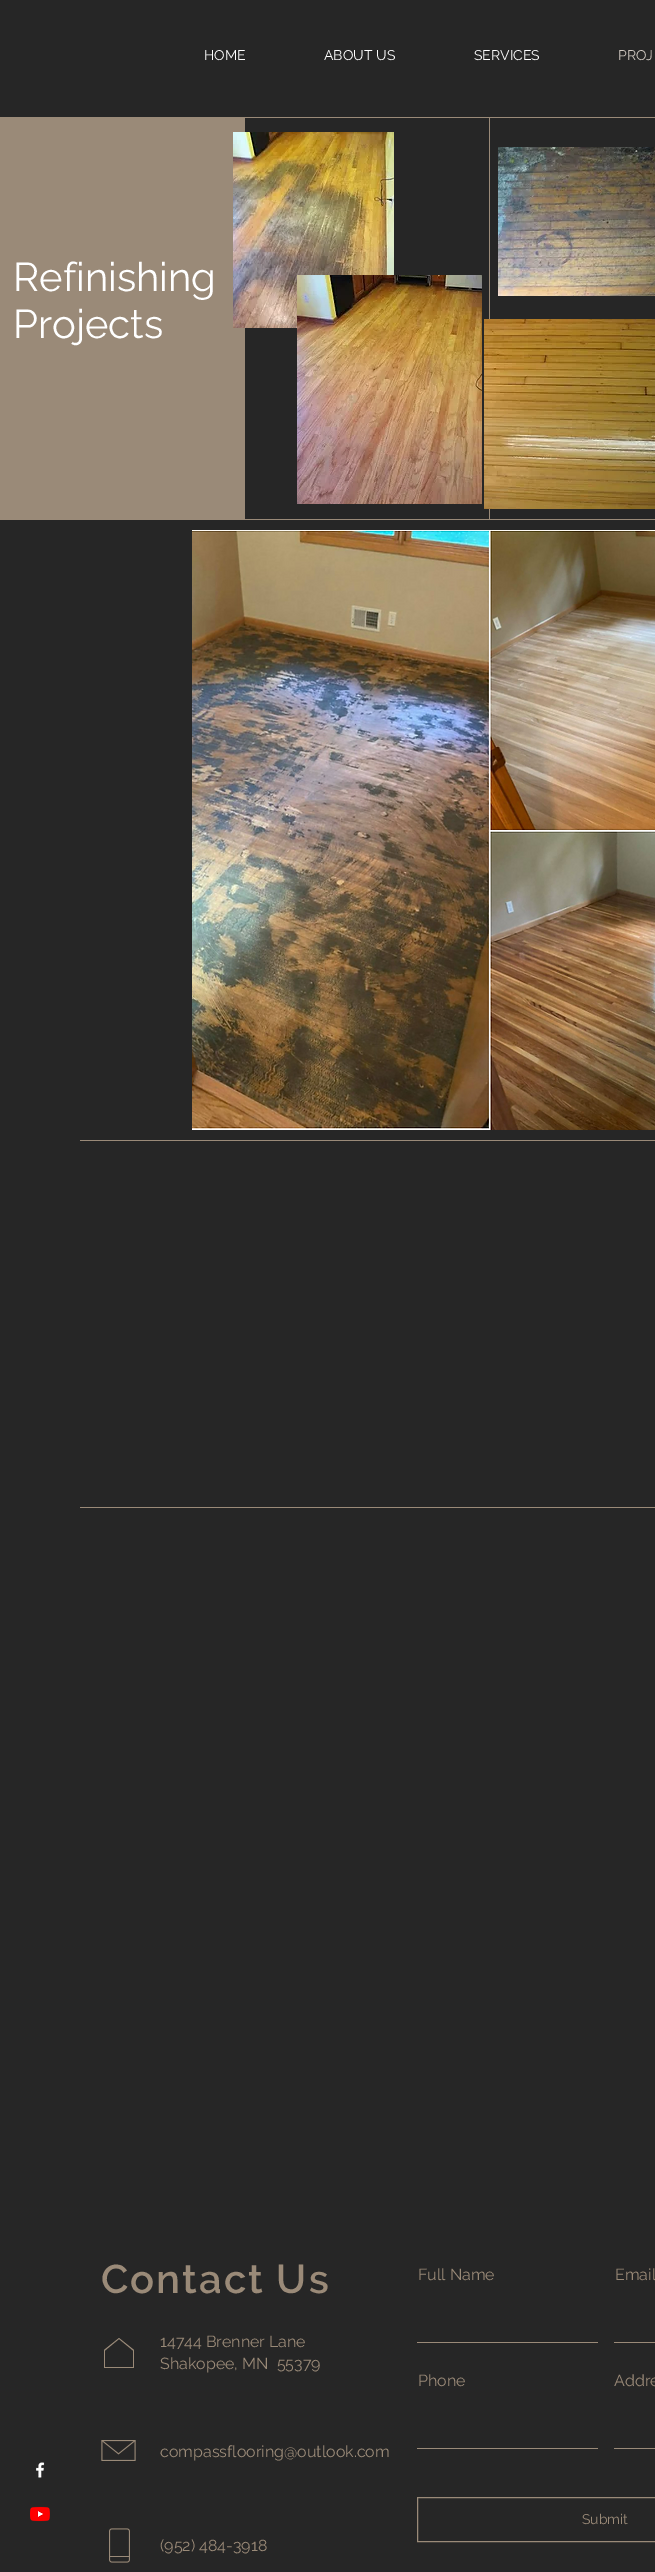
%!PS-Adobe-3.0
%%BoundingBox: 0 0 655 2572
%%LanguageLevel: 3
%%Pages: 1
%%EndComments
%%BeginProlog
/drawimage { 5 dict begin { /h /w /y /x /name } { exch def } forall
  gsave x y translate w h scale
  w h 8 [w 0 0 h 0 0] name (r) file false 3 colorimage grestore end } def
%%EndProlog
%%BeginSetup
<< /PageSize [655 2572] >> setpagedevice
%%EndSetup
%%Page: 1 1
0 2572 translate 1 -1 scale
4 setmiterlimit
0.149 setgray
0 0 655 2572 rectfill
0.604 0.541 0.471 setrgbcolor
0 117 655 403 rectfill
0.149 setgray
245 118 244 401 rectfill
(images/1.raw) 233 132 161 196 drawimage
(images/2.raw) 297 275 185 229 drawimage
490 118 165 401 rectfill
(images/3.raw) 498 147 157 149 drawimage
(images/4.raw) 484 319 171 190 drawimage
(images/5.raw) 192 530 463 600 drawimage
0.604 0.541 0.471 setrgbcolor
80 1140 575 1 rectfill
80 1507 575 1 rectfill
(images/6.raw) 36 2462 9 16 drawimage
(images/7.raw) 30 2506 20 16 drawimage
newpath 134 2368 moveto 104 2368 lineto 104 2350 lineto 119 2338 lineto 134 2350 lineto closepath 105 2367 moveto 133 2367 lineto 133 2350.5 lineto 119 2339 lineto 105 2350.5 lineto closepath fill
(images/8.raw) 101 2440 35 21 drawimage
(images/9.raw) 109 2528 21 35 drawimage
417 2342 181 1 rectfill
614 2342 41 1 rectfill
417 2448 181 1 rectfill
614 2448 41 1 rectfill
417.5 2497.5 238 44 rectstroke
/Raleway-Regular [14 0 0 -14 0 0] selectfont
1 setgray
204 60 moveto (HOME) show
324 60 moveto (ABOUT US) show
474 60 moveto (SERVICES) show
0.812 0.784 0.753 setrgbcolor
618 60 moveto (PROJ) show
/Raleway-Regular [40 0 0 -40 0 0] selectfont
1 setgray
13 291 moveto (Refinishing) show
13 338 moveto (Projects) show
/Raleway-SemiBold [40 0 0 -40 0 0] selectfont
0.604 0.541 0.471 setrgbcolor
101 2293 moveto 2 0 (Contact Us) ashow
/Raleway-Regular [16 0 0 -16 0 0] selectfont
160 2347 moveto (14744 Brenner Lane) show
160 2369 moveto (Shakopee, MN  55379) show
160 2457 moveto (compassflooring@outlook.com) show
160 2551 moveto (\(952\) 484-3918) show
418 2280 moveto (Full Name) show
615 2280 moveto (Email) show
418 2386 moveto (Phone) show
614 2386 moveto (Addre) show
/Raleway-Regular [14 0 0 -14 0 0] selectfont
582 2524 moveto (Submit) show
showpage
%%EOF
